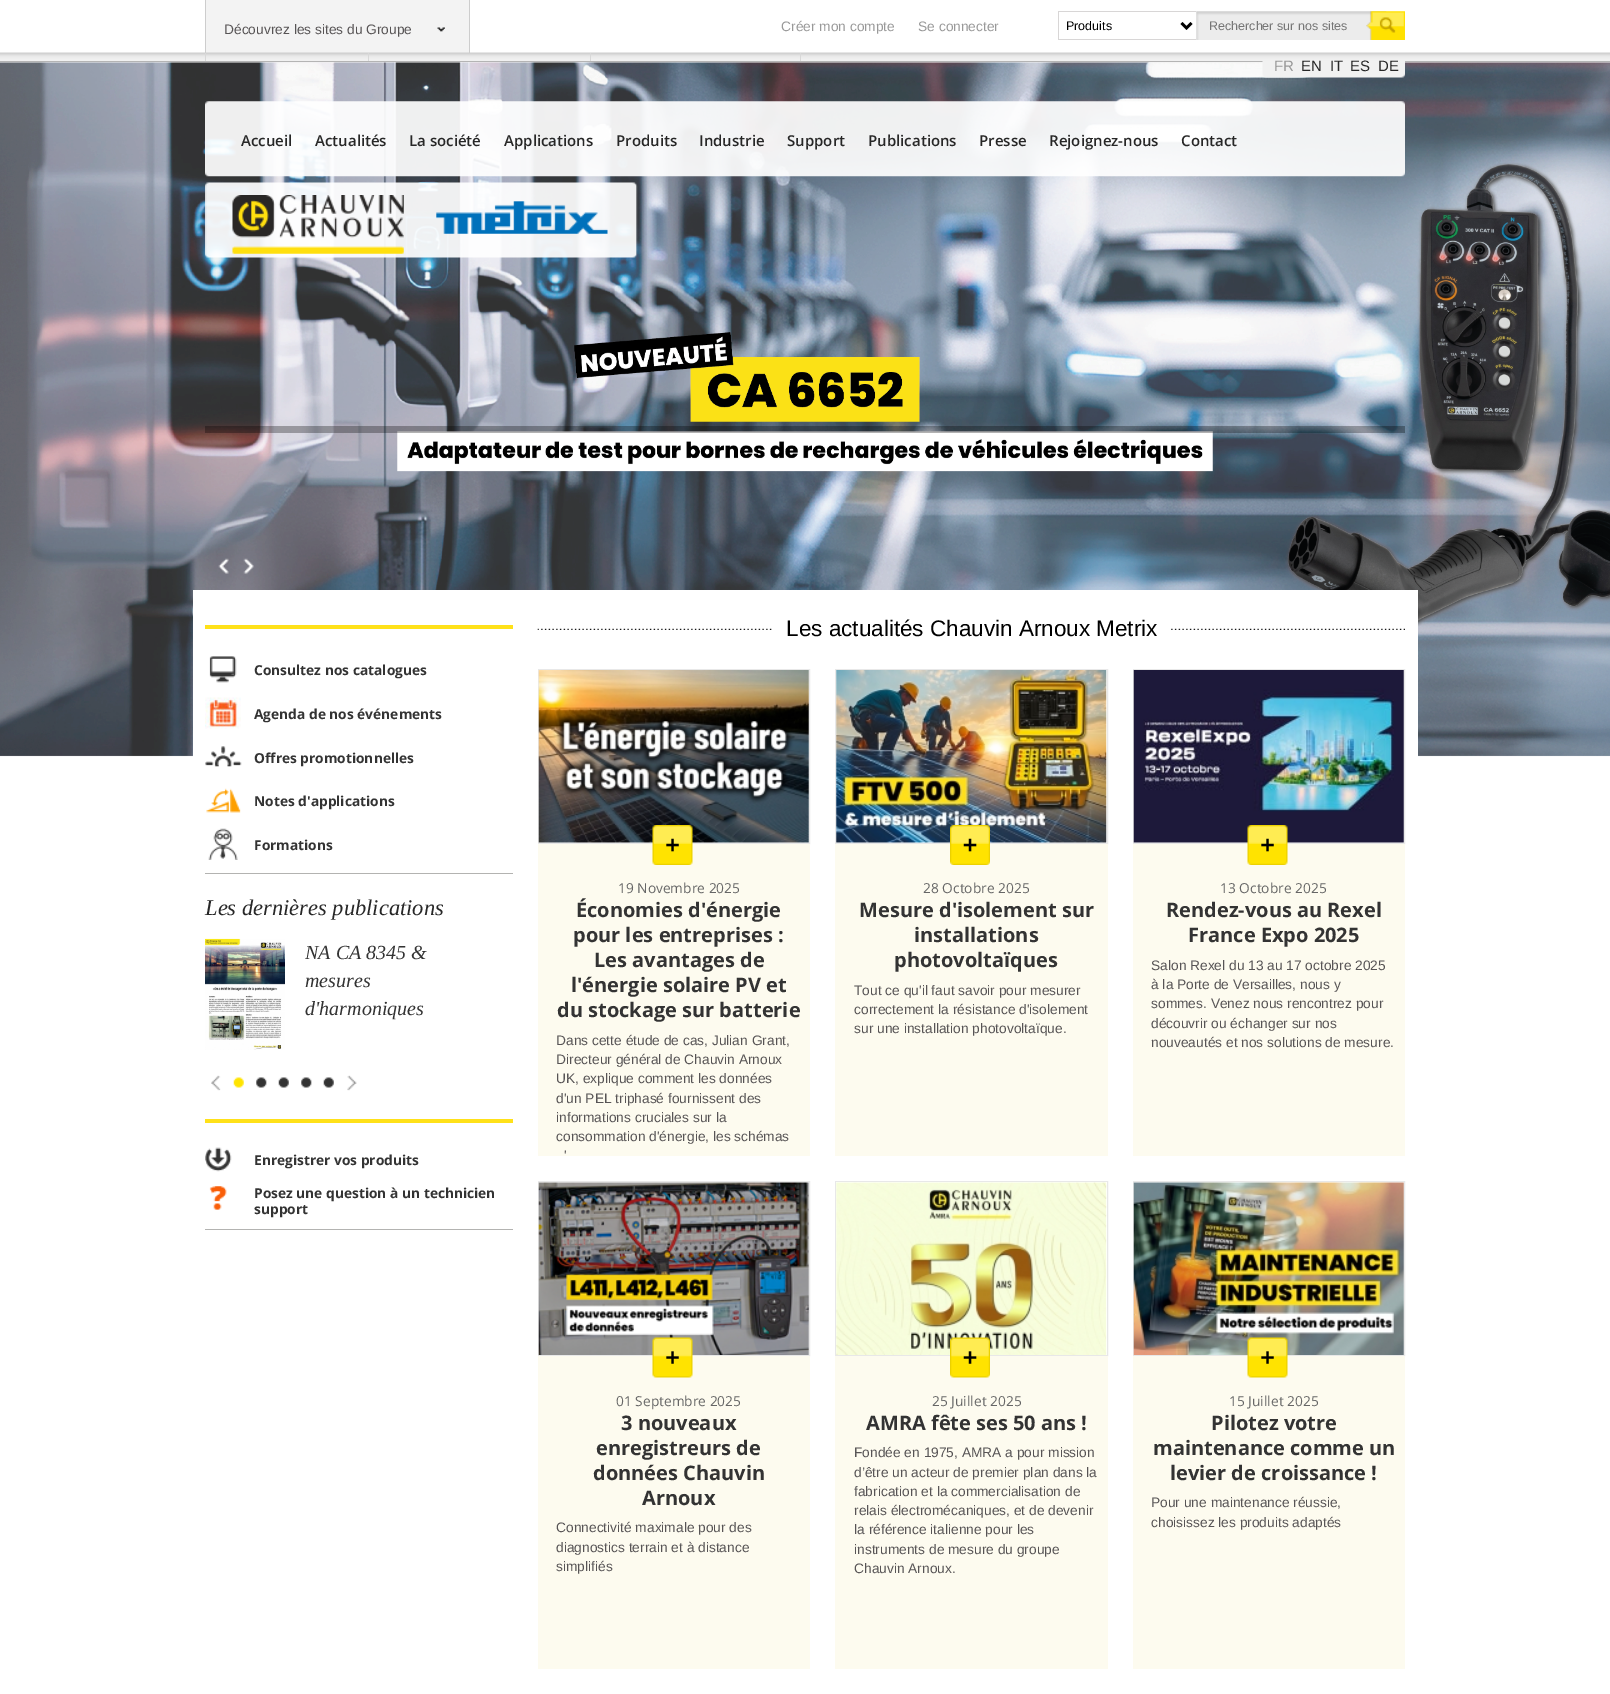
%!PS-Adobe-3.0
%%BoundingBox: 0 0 1610 1694
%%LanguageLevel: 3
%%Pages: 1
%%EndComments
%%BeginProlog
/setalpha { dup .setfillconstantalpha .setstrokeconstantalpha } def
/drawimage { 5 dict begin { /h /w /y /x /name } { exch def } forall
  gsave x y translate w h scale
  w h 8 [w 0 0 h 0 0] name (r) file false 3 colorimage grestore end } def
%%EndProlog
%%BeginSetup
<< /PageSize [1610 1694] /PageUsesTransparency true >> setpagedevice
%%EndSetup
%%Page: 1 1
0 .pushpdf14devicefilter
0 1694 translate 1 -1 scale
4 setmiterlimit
1 setgray
0 0 1610 1694 rectfill
0.953 setgray
206 0 263 53 rectfill
(images/1.raw) 437 27 8 5 drawimage
0.804 setgray
469 0 1 53 rectfill
205 0 1 53 rectfill
0.847 0.839 0.839 setrgbcolor
1058 11 138 1 rectfill
1058 39 138 1 rectfill
1058 11 1 29 rectfill
0 setgray
2.5 setlinewidth
newpath 1181.5 23 moveto 1186.5 28 lineto 1191.5 23 lineto stroke
(images/2.raw) 1196 11 191 29 drawimage
(images/3.raw) 1366 11 39 29 drawimage
(images/6.raw) 0 62 1610 7 drawimage
(images/7.raw) 0 62 1610 695 drawimage
(images/4.raw) 0 52 1610 11 drawimage
0.706 setgray
0 61 1610 1 rectfill
0.847 setgray
205 53 1 8 rectfill
368 53 1 8 rectfill
590 53 1 8 rectfill
800 53 1 8 rectfill
(images/5.raw) 1262 61 143 17 drawimage
0.3 setalpha
0 setgray
205 426 1200 7 rectfill
1 setalpha
(images/8.raw) 218 558 11 16 drawimage
(images/9.raw) 243 558 11 16 drawimage
(images/10.raw) 205 101 1200 76 drawimage
(images/11.raw) 205 182 433 76 drawimage
(images/12.raw) 232 195 376 59 drawimage
1 setgray
193 590 1225 167 rectfill
1 0.882 0.098 setrgbcolor
205 625 308 4 rectfill
(images/13.raw) 209 656 28 27 drawimage
(images/14.raw) 205 697 36 32 drawimage
(images/15.raw) 205 746 37 21 drawimage
(images/16.raw) 206 788 35 25 drawimage
(images/17.raw) 208 828 30 32 drawimage
0.702 0.702 0.694 setrgbcolor
205 873 308 1 rectfill
(images/18.raw) 205 938 80 112 drawimage
(images/19.raw) 211 1075 10 16 drawimage
(images/20.raw) 233 1077 11 11 drawimage
(images/21.raw) 256 1077 11 11 drawimage
(images/22.raw) 278 1077 11 11 drawimage
(images/21.raw) 301 1077 11 11 drawimage
(images/22.raw) 323 1077 11 11 drawimage
(images/23.raw) 347 1075 10 16 drawimage
1 0.882 0.098 setrgbcolor
205 1119 308 4 rectfill
0.702 0.702 0.694 setrgbcolor
205 1229 308 1 rectfill
(images/24.raw) 205 1147 27 25 drawimage
(images/25.raw) 209 1186 18 24 drawimage
(images/26.raw) 537 628 868 2 drawimage
1 setgray
773 628 396 2 rectfill
0.91 setgray
1 setlinewidth
538.5 669.5 271 174 rectstroke
(images/27.raw) 538 670 271 173 drawimage
0.992 0.984 0.937 setrgbcolor
538 844 272 312 rectfill
(images/28.raw) 652 825 41 40 drawimage
0.91 setgray
835.5 669.5 272 174 rectstroke
(images/29.raw) 836 670 271 173 drawimage
0.992 0.984 0.937 setrgbcolor
835 844 273 312 rectfill
(images/30.raw) 950 825 40 40 drawimage
0.91 setgray
1133.5 669.5 271 174 rectstroke
(images/31.raw) 1133 670 271 173 drawimage
0.992 0.984 0.937 setrgbcolor
1133 844 272 312 rectfill
(images/32.raw) 1247 825 41 40 drawimage
0.91 setgray
538.5 1181.5 271 174 rectstroke
(images/33.raw) 538 1182 271 173 drawimage
0.992 0.984 0.937 setrgbcolor
538 1356 272 313 rectfill
(images/34.raw) 652 1337 41 41 drawimage
0.91 setgray
835.5 1181.5 272 174 rectstroke
(images/35.raw) 836 1182 271 173 drawimage
0.992 0.984 0.937 setrgbcolor
835 1356 273 313 rectfill
(images/36.raw) 950 1337 40 41 drawimage
0.91 setgray
1133.5 1181.5 271 174 rectstroke
(images/37.raw) 1133 1182 271 173 drawimage
0.992 0.984 0.937 setrgbcolor
1133 1356 272 313 rectfill
(images/38.raw) 1247 1337 41 41 drawimage
/LiberationSans-Regular [13.75 0 0 -13.75 0 0] selectfont
0.341 0.329 0.333 setrgbcolor
224 34 moveto (Découvrez les sites du Groupe) show
0.6 setgray
781 31 moveto (Créer mon compte) show
918 31 moveto (Se connecter) show
/LiberationSans-Regular [12.5 0 0 -12.5 0 0] selectfont
0 setgray
1066 30 moveto (Produits) show
0.459 setgray
1209 30 moveto (Rechercher sur nos sites) show
/LiberationSans-Regular [15 0 0 -15 0 0] selectfont
0.6 setgray
1274 71 moveto (FR) show
0.153 setgray
1301 71 moveto (EN) show
1330 71 moveto (IT) show
1350 71 moveto (ES) show
1378 71 moveto (DE) show
/OpenSans-SemiBold [15 0 0 -15 0 0] selectfont
241 146 moveto (Accueil) show
315 146 moveto (Actualités) show
409 146 moveto (La société) show
504 146 moveto (Applications) show
616 146 moveto (Produits) show
699 146 moveto (Industrie) show
787 146 moveto (Support) show
868 146 moveto (Publications) show
979 146 moveto (Presse) show
1049 146 moveto (Rejoignez-nous) show
1181 146 moveto (Contact) show
/OpenSans-Bold [13.75 0 0 -13.75 0 0] selectfont
0.2 setgray
254 675 moveto (Consultez nos catalogues) show
254 719 moveto (Agenda de nos événements) show
254 763 moveto (Offres promotionnelles) show
254 806 moveto (Notes d'applications) show
254 850 moveto (Formations) show
/LiberationSerif-Italic [22.5 0 0 -22.5 0 0] selectfont
0.153 setgray
205 915 moveto (Les dernières publications) show
/LiberationSerif-Italic [20 0 0 -20 0 0] selectfont
0.2 setgray
305 959 moveto (NA CA 8345 &) show
305 987 moveto (mesures) show
305 1015 moveto (d'harmoniques) show
/OpenSans-Bold [13.75 0 0 -13.75 0 0] selectfont
254 1165 moveto (Enregistrer vos produits) show
254 1198 moveto (Posez une question à un technicien) show
254 1214 moveto (support) show
/LiberationSans-Regular [22.5 0 0 -22.5 0 0] selectfont
0 setgray
786 636 moveto (Les actualités Chauvin Arnoux Metrix) show
/OpenSans-Regular [13.75 0 0 -13.75 0 0] selectfont
0.4 setgray
618 893 moveto (19 Novembre 2025) show
/OpenSans-Bold [20 0 0 -20 0 0] selectfont
0.2 setgray
576 917 moveto (Économies d'énergie) show
573 942 moveto (pour les entreprises :) show
594 967 moveto (Les avantages de) show
571 992 moveto (l'énergie solaire PV et) show
557 1017 moveto (du stockage sur batterie) show
/LiberationSans-Regular [13.75 0 0 -13.75 0 0] selectfont
0.341 0.329 0.333 setrgbcolor
556 1045 moveto (Dans cette étude de cas, Julian Grant,) show
556 1064 moveto (Directeur général de Chauvin Arnoux) show
556 1083 moveto (UK, explique comment les données) show
556 1103 moveto (d'un PEL triphasé fournissent des) show
556 1122 moveto (informations cruciales sur la) show
556 1141 moveto (consommation d'énergie, les schémas) show
564 1160 moveto (') show
/OpenSans-Regular [13.75 0 0 -13.75 0 0] selectfont
0.4 setgray
923 893 moveto (28 Octobre 2025) show
/OpenSans-Bold [20 0 0 -20 0 0] selectfont
0.2 setgray
859 917 moveto (Mesure d'isolement sur) show
914 942 moveto (installations) show
894 967 moveto (photovoltaïques) show
/LiberationSans-Regular [13.75 0 0 -13.75 0 0] selectfont
0.341 0.329 0.333 setrgbcolor
854 995 moveto (Tout ce qu'il faut savoir pour mesurer) show
854 1014 moveto (correctement la résistance d'isolement) show
854 1033 moveto (sur une installation photovoltaïque.) show
/OpenSans-Regular [13.75 0 0 -13.75 0 0] selectfont
0.4 setgray
1220 893 moveto (13 Octobre 2025) show
/OpenSans-Bold [20 0 0 -20 0 0] selectfont
0.2 setgray
1166 917 moveto (Rendez-vous au Rexel) show
1188 942 moveto (France Expo 2025) show
/LiberationSans-Regular [13.75 0 0 -13.75 0 0] selectfont
0.341 0.329 0.333 setrgbcolor
1151 970 moveto (Salon Rexel du 13 au 17 octobre 2025) show
1151 989 moveto (à la Porte de Versailles, nous y) show
1151 1008 moveto (sommes. Venez nous rencontrez pour) show
1151 1028 moveto (découvrir ou échanger sur nos) show
1151 1047 moveto (nouveautés et nos solutions de mesure.) show
/OpenSans-Regular [13.75 0 0 -13.75 0 0] selectfont
0.4 setgray
616 1406 moveto (01 Septembre 2025) show
/OpenSans-Bold [20 0 0 -20 0 0] selectfont
0.2 setgray
621 1430 moveto (3 nouveaux) show
596 1455 moveto (enregistreurs de) show
593 1480 moveto (données Chauvin) show
642 1505 moveto (Arnoux) show
/LiberationSans-Regular [13.75 0 0 -13.75 0 0] selectfont
0.341 0.329 0.333 setrgbcolor
556 1532 moveto (Connectivité maximale pour des) show
556 1552 moveto (diagnostics terrain et à distance) show
556 1571 moveto (simplifiés) show
/OpenSans-Regular [13.75 0 0 -13.75 0 0] selectfont
0.4 setgray
932 1406 moveto (25 Juillet 2025) show
/OpenSans-Bold [20 0 0 -20 0 0] selectfont
0.2 setgray
866 1430 moveto (AMRA fête ses 50 ans !) show
/LiberationSans-Regular [13.75 0 0 -13.75 0 0] selectfont
0.341 0.329 0.333 setrgbcolor
854 1457 moveto (Fondée en 1975, AMRA a pour mission) show
854 1477 moveto (d’être un acteur de premier plan dans la) show
854 1496 moveto (fabrication et la commercialisation de) show
854 1515 moveto (relais électromécaniques, et de devenir) show
854 1534 moveto (la référence italienne pour les) show
854 1554 moveto (instruments de mesure du groupe) show
854 1573 moveto (Chauvin Arnoux.) show
/OpenSans-Regular [13.75 0 0 -13.75 0 0] selectfont
0.4 setgray
1229 1406 moveto (15 Juillet 2025) show
/OpenSans-Bold [20 0 0 -20 0 0] selectfont
0.2 setgray
1211 1430 moveto (Pilotez votre) show
1153 1455 moveto (maintenance comme un) show
1170 1480 moveto (levier de croissance !) show
/LiberationSans-Regular [13.75 0 0 -13.75 0 0] selectfont
0.341 0.329 0.333 setrgbcolor
1151 1507 moveto (Pour une maintenance réussie,) show
1151 1527 moveto (choisissez les produits adaptés) show
.poppdf14devicefilter showpage
%%EOF
